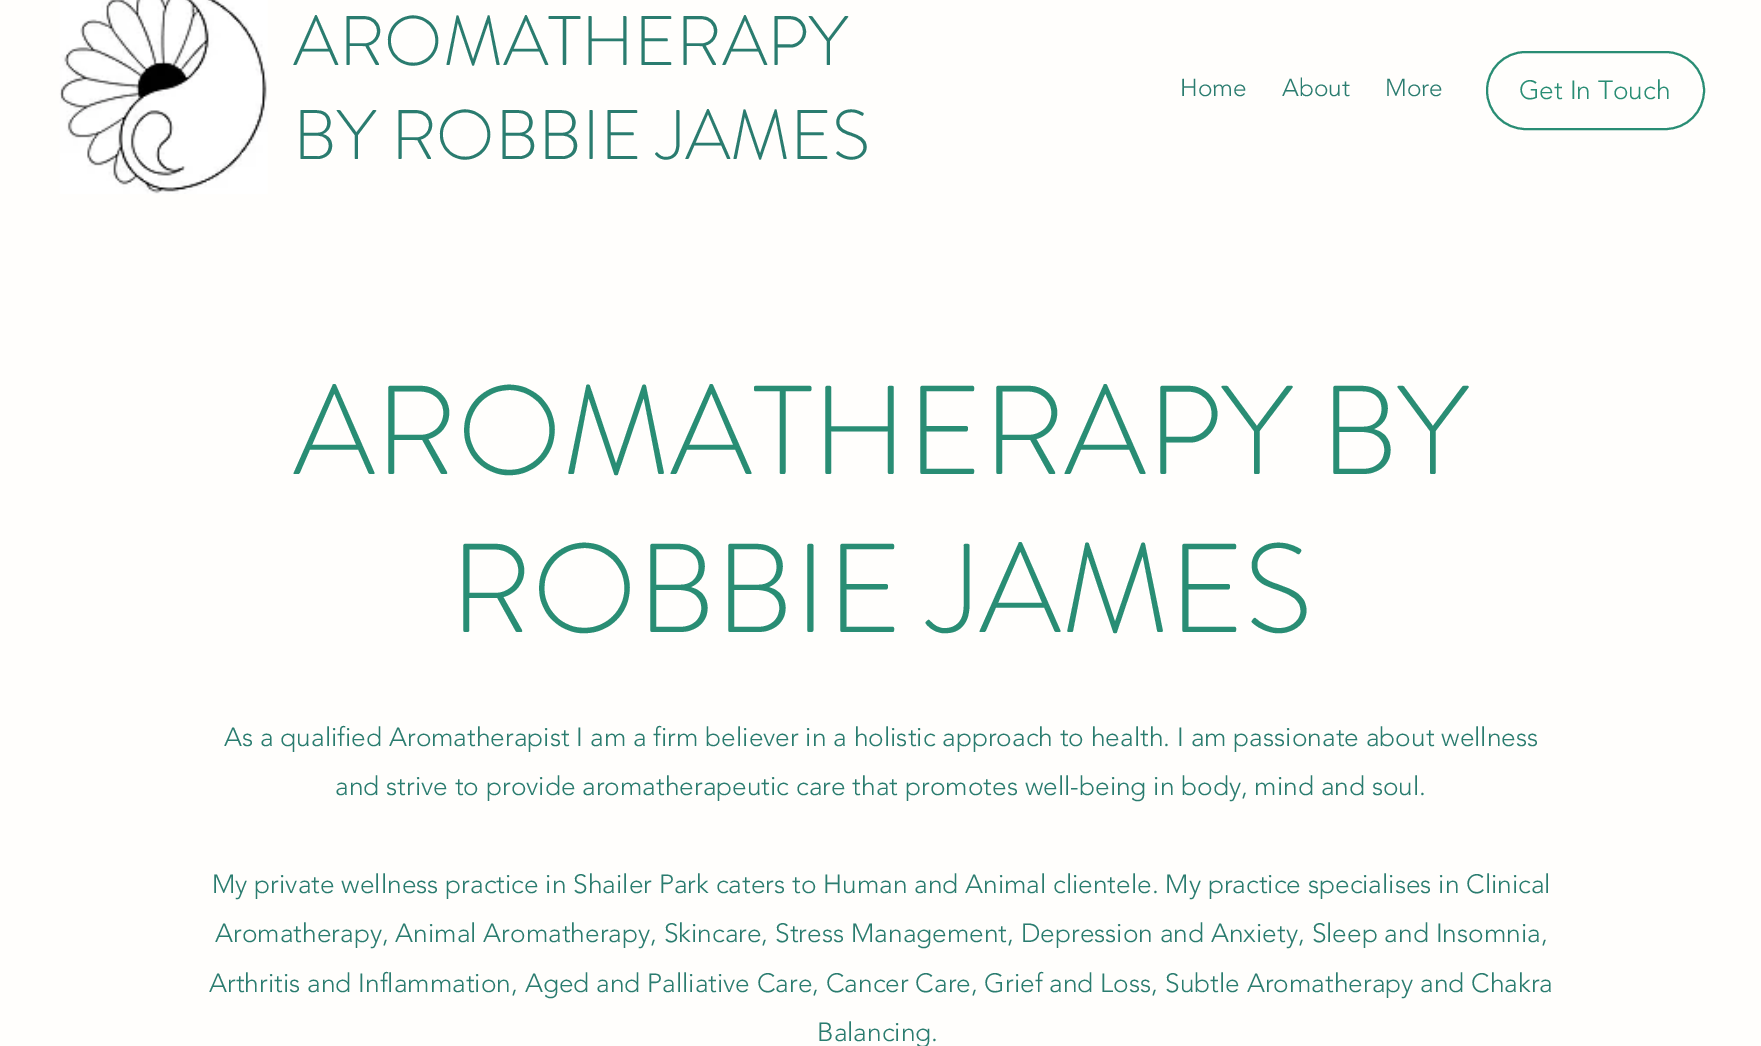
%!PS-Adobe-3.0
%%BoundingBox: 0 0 1761 1046
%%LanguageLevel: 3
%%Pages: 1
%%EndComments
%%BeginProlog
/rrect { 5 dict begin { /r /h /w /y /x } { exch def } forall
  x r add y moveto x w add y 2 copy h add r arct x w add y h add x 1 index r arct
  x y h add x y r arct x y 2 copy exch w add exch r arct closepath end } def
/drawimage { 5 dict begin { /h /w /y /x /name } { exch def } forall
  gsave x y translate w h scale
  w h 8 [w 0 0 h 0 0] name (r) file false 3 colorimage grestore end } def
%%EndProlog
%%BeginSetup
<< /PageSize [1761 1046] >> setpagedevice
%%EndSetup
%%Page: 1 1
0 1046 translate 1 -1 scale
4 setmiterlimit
1 0.996 0.988 setrgbcolor
0 0 1761 1046 rectfill
(images/1.raw) 59 0 209 194 drawimage
0.161 0.553 0.455 setrgbcolor
2 setlinewidth
1487 52 217 77 38.5 rrect stroke
/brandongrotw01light-Light [70 0 0 -70 0 0] selectfont
0.165 0.486 0.435 setrgbcolor
293 65 moveto (AROMATHERAPY) show
293 159 moveto (BY ROBBIE JAMES) show
/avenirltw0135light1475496-Light [24.5 0 0 -24.5 0 0] selectfont
1180 96 moveto (Home) show
1282 96 moveto (About) show
1385 96 moveto (More) show
/avenirltw0135light1475496-Light [26.25 0 0 -26.25 0 0] selectfont
0.161 0.553 0.455 setrgbcolor
1519 99 moveto (Get In Touch) show
/brandongrotw01light-Light [126 0 0 -126 0 0] selectfont
293 474 moveto (AROMATHERAPY BY) show
450 632 moveto (ROBBIE JAMES) show
/avenirltw0135light1475496-Light [26.25 0 0 -26.25 0 0] selectfont
0.165 0.486 0.435 setrgbcolor
224 746 moveto (As a qualified Aromatherapist I am a firm believer in a holistic approach to health. I am passionate about wellness) show
335 795 moveto (and strive to provide aromatherapeutic care that promotes well-being in body, mind and soul.) show
212 893 moveto (My private wellness practice in Shailer Park caters to Human and Animal clientele. My practice specialises in Clinical) show
215 942 moveto (Aromatherapy, Animal Aromatherapy, Skincare, Stress Management, Depression and Anxiety, Sleep and Insomnia,) show
209 992 moveto (Arthritis and Inflammation, Aged and Palliative Care, Cancer Care, Grief and Loss, Subtle Aromatherapy and Chakra) show
817 1041 moveto (Balancing.) show
showpage
%%EOF
